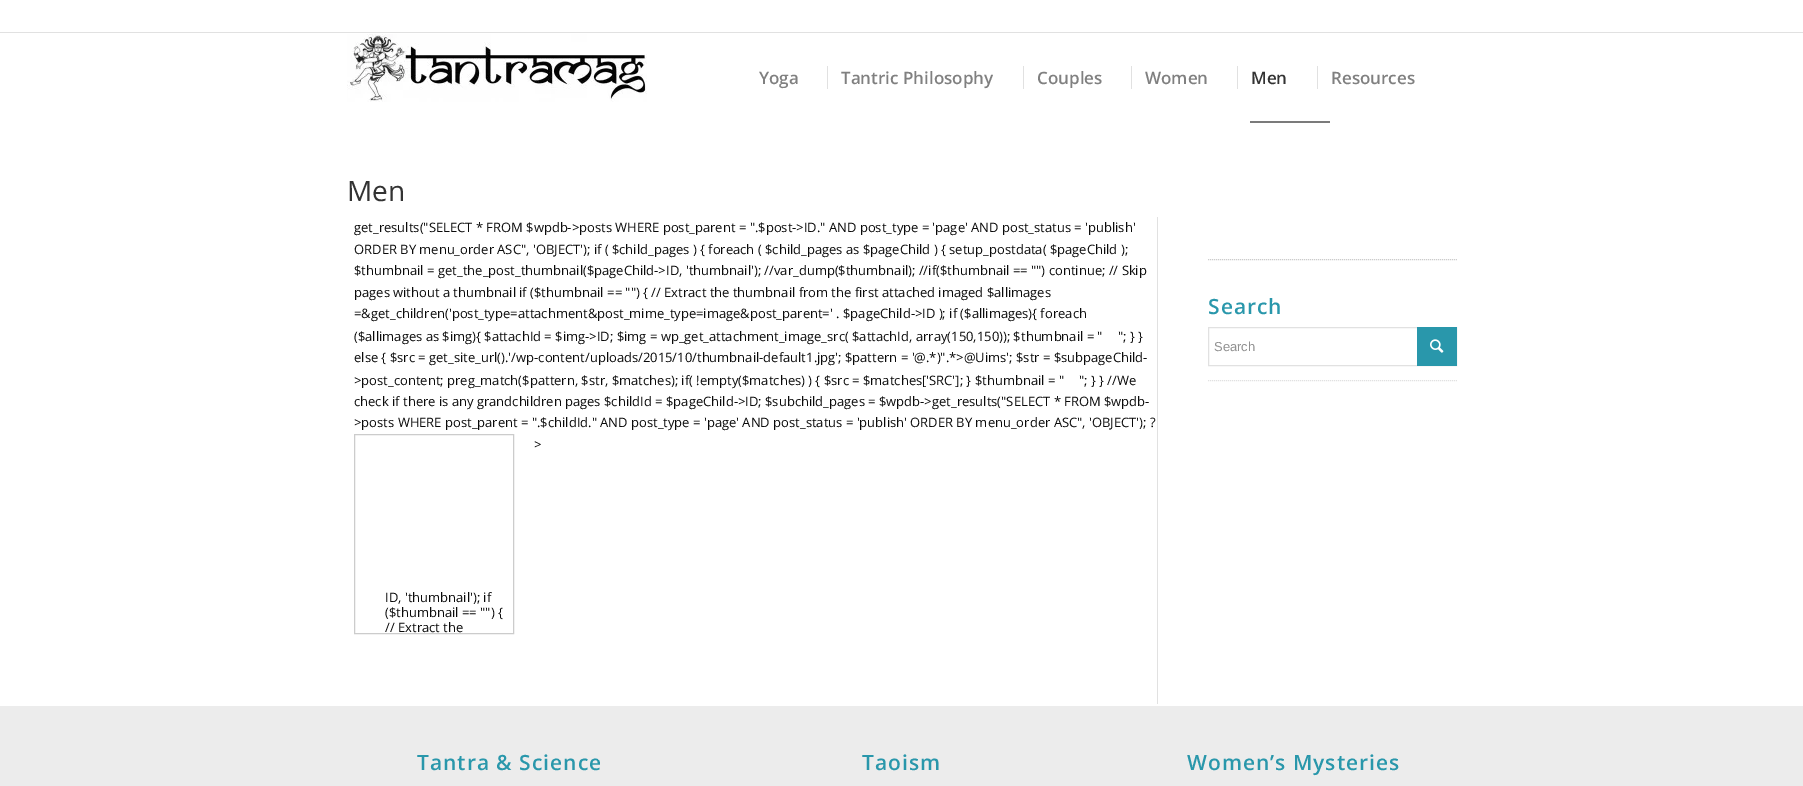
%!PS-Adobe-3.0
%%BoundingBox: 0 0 1803 786
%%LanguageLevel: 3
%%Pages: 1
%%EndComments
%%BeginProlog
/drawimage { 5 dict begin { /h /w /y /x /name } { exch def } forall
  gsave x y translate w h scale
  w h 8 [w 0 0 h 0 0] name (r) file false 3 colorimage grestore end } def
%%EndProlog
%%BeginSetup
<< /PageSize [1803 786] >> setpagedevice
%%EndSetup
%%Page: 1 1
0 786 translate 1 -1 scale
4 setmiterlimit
1 setgray
0 0 1803 786 rectfill
0.882 setgray
0 32 1803 1 rectfill
(images/1.raw) 347 34 300 68 drawimage
827 66 1 23 rectfill
1023 66 1 23 rectfill
1131 66 1 23 rectfill
1237 66 1 23 rectfill
0.482 setgray
1250 121 80 2 rectfill
0.882 setgray
1317 66 1 23 rectfill
1157 217 1 487 rectfill
0.8 setgray
354.5 434.5 159 199 rectstroke
[1 1] 0 setdash
newpath 1208 259.5 moveto 1457 259.5 lineto stroke
0.882 setgray
newpath 1208 380.5 moveto 1457 380.5 lineto stroke
[] 0 setdash
1208.5 327.5 248 38 rectstroke
0.161 0.592 0.671 setrgbcolor
1417 327 40 39 rectfill
(images/2.raw) 1430 339 14 14 drawimage
0.925 setgray
0 706 1803 80 rectfill
/OpenSans-SemiBold [17 0 0 -17 0 0] selectfont
0.502 setgray
759 84 moveto (Yoga) show
841 84 moveto (Tantric Philosophy) show
1037 84 moveto (Couples) show
1145 84 moveto (Women) show
0.2 setgray
1251 84 moveto (Men) show
0.502 setgray
1331 84 moveto (Resources) show
/OpenSans-Regular [28 0 0 -28 0 0] selectfont
0.2 setgray
347 201 moveto (Men) show
/OpenSans-Regular [13 0 0 -13 0 0] selectfont
0.039 setgray
354 232 moveto (get_results\("SELECT * FROM $wpdb->posts WHERE post_parent = ".$post->ID." AND post_type = 'page' AND post_status = 'publish') show
354 254 moveto (ORDER BY menu_order ASC", 'OBJECT'\); if \( $child_pages \) { foreach \( $child_pages as $pageChild \) { setup_postdata\( $pageChild \);) show
354 275 moveto ($thumbnail = get_the_post_thumbnail\($pageChild->ID, 'thumbnail'\); //var_dump\($thumbnail\); //if\($thumbnail == ""\) continue; // Skip) show
354 297 moveto (pages without a thumbnail if \($thumbnail == ""\) { // Extract the thumbnail from the first attached imaged $allimages) show
354 318 moveto (=&get_children\('post_type=attachment&post_mime_type=image&post_parent=' . $pageChild->ID \); if \($allimages\){ foreach) show
354 341 moveto (\($allimages as $img\){ $attachId = $img->ID; $img = wp_get_attachment_image_src\( $attachId, array\(150,150\)\); $thumbnail = ") show
1118 341 moveto ("; } }) show
354 362 moveto (else { $src = get_site_url\(\).'/wp-content/uploads/2015/10/thumbnail-default1.jpg'; $pattern = '@.*\)".*>@Uims'; $str = $subpageChild-) show
354 385 moveto (>post_content; preg_match\($pattern, $str, $matches\); if\( !empty\($matches\) \) { $src = $matches['SRC']; } $thumbnail = ") show
1079 385 moveto ("; } } //We) show
354 406 moveto (check if there is any grandchildren pages $childId = $pageChild->ID; $subchild_pages = $wpdb->get_results\("SELECT * FROM $wpdb-) show
354 427 moveto (>posts WHERE post_parent = ".$childId." AND post_type = 'page' AND post_status = 'publish' ORDER BY menu_order ASC", 'OBJECT'\); ?) show
534 449 moveto (>) show
385 602 moveto (ID, 'thumbnail'\); if) show
385 617 moveto (\($thumbnail == ""\) {) show
385 632 moveto (// Extract the) show
/OpenSans-SemiBold [21 0 0 -21 0 0] selectfont
0.161 0.592 0.671 setrgbcolor
1208 314 moveto 1 0 (Search) ashow
/LiberationSans-Regular [13 0 0 -13 0 0] selectfont
0.569 setgray
1214 351 moveto (Search) show
/OpenSans-SemiBold [21 0 0 -21 0 0] selectfont
0.161 0.592 0.671 setrgbcolor
417 770 moveto 1 0 (Tantra & Science) ashow
862 770 moveto 1 0 (Taoism) ashow
1187 770 moveto 1 0 (Women’s Mysteries) ashow
showpage
%%EOF
